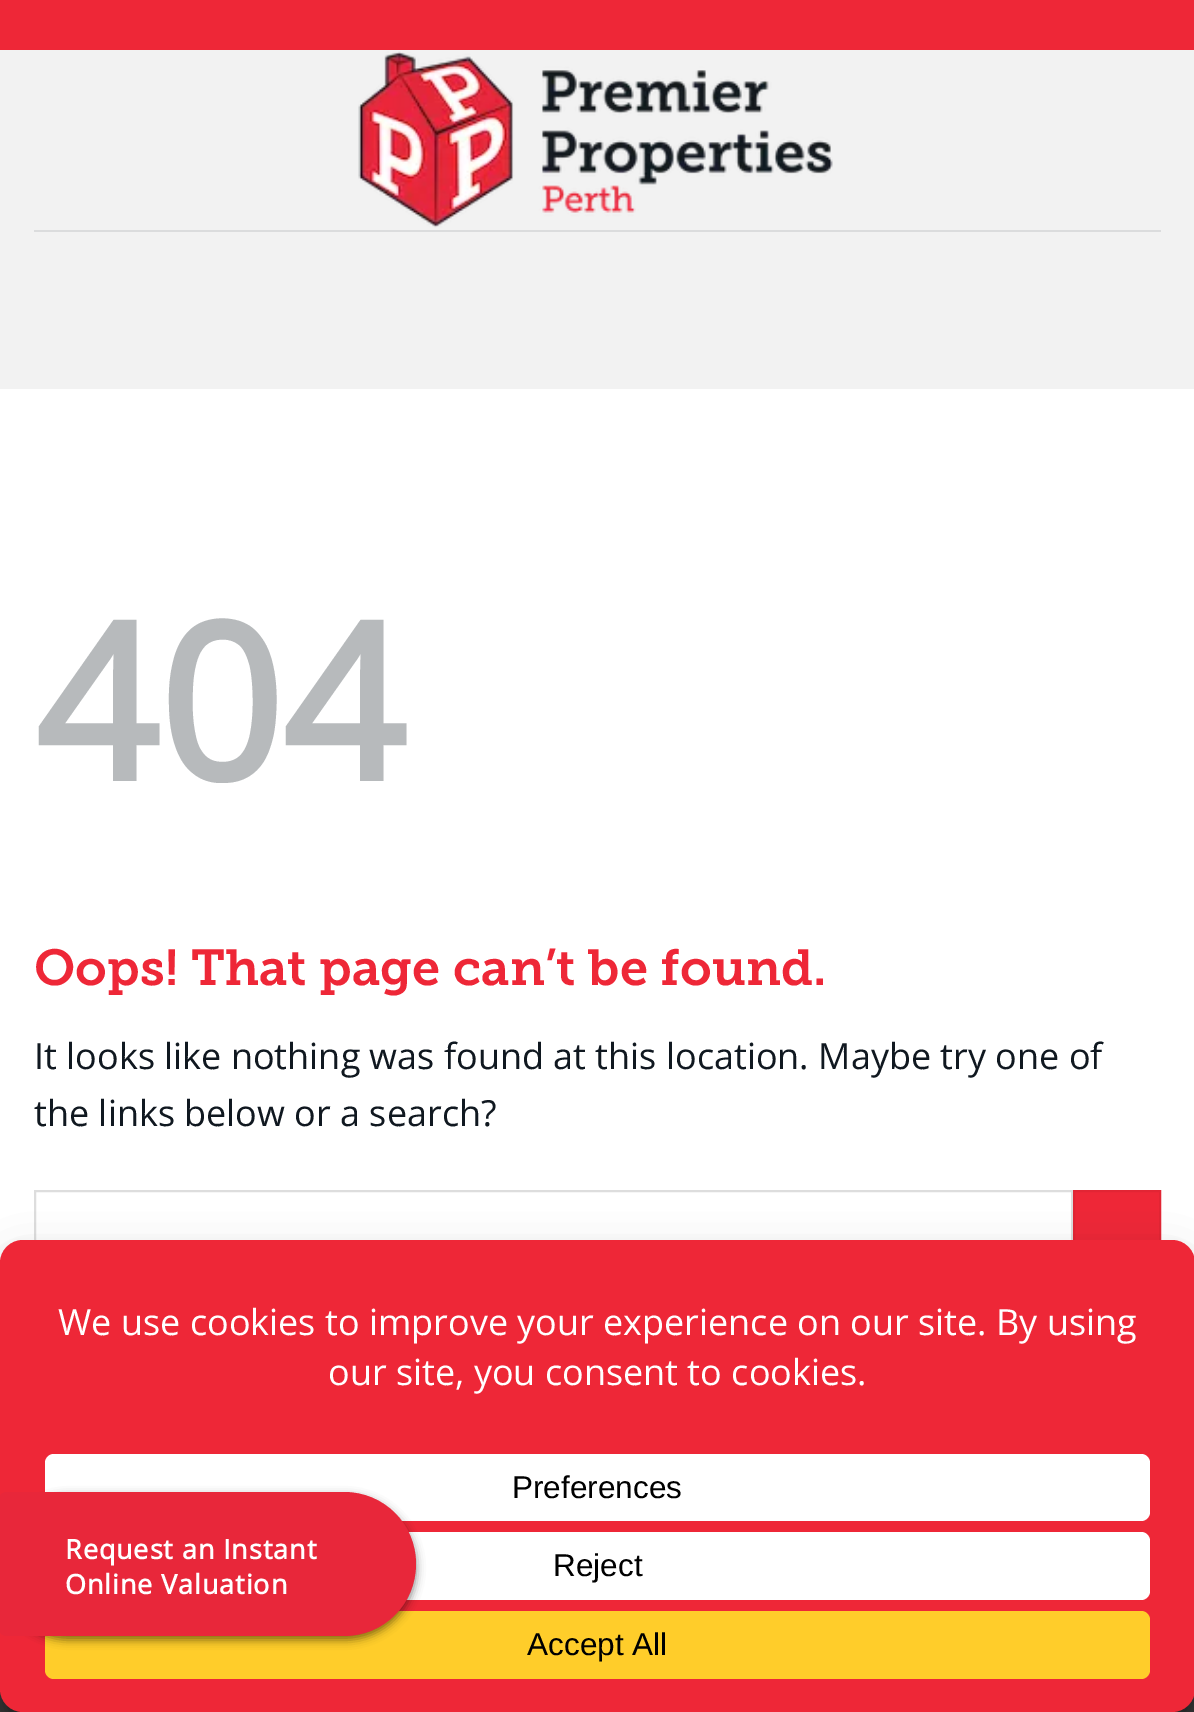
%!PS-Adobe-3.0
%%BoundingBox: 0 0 1194 1712
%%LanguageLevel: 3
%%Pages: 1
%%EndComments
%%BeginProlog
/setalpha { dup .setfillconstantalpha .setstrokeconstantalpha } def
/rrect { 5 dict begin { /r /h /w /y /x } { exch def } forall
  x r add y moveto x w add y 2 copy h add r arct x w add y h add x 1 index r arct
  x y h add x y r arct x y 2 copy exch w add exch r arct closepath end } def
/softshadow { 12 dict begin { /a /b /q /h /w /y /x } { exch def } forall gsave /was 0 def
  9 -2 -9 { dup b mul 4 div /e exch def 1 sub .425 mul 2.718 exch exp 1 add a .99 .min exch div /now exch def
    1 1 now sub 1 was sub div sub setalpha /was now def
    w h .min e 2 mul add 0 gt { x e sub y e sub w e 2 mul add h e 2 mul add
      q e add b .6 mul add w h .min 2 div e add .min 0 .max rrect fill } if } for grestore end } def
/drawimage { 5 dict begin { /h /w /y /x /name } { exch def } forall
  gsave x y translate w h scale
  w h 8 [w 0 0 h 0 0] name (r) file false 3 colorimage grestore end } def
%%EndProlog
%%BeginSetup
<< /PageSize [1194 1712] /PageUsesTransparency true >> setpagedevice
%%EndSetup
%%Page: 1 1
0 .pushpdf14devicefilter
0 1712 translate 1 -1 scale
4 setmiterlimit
1 setgray
0 0 1194 1712 rectfill
0.933 0.153 0.216 setrgbcolor
0 0 1194 50 rectfill
0.949 setgray
0 50 1194 339 rectfill
(images/1.raw) 358 51 475 177 drawimage
0.859 0.863 0.867 setrgbcolor
34 230 1127 2 rectfill
0.867 setgray
2 setlinewidth
35 1191 1037 88 rectstroke
0.933 0.153 0.216 setrgbcolor
1075 1192 84 48 rectfill
0.886 0.145 0.204 setrgbcolor
1074 1191 86 88 rectstroke
0.22 setgray
0 1689 1194 23 rectfill
0 setgray
0 1253 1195 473 23 7 0.23 softshadow
0 1262 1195 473 23 22.5 0.19 softshadow
0.933 0.153 0.216 setrgbcolor
0 1240 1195 472 23 rrect fill
1 setgray
45 1454 1105 67 9 rrect fill
45 1532 1105 68 9 rrect fill
1 0.804 0.165 setrgbcolor
45 1611 1105 68 9 rrect fill
0 setgray
-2 1496 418 144 72 4.5 0.48 softshadow
0.91 0.153 0.227 setrgbcolor
newpath 7 1492 moveto 344 1492 lineto 384 1492 416 1524 416 1564 curveto 416 1604 384 1636 344 1636 curveto 7 1636 lineto 2 1636 -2 1632 -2 1627 curveto -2 1501 lineto -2 1496 2 1492 7 1492 curveto closepath fill
/OpenSans-Bold [216 0 0 -216 0 0] selectfont
0.718 0.729 0.737 setrgbcolor
34 781 moveto (404) show
/MuseoSlab-SemiBold [50.4 0 0 -50.4 0 0] selectfont
0.933 0.153 0.216 setrgbcolor
34 985 moveto (Oops! That page can’t be found.) show
/OpenSans-Regular [36 0 0 -36 0 0] selectfont
0.063 0.094 0.125 setrgbcolor
34 1069 moveto (It looks like nothing was found at this location. Maybe try one of) show
34 1126 moveto (the links below or a search?) show
/OpenSans-Bold [27 0 0 -27 0 0] selectfont
1 setgray
65 1559 moveto 0.9 0 (Request an Instant) ashow
65 1594 moveto 0.9 0 (Online Valuation) ashow
/OpenSans-Regular [36 0 0 -36 0 0] selectfont
58 1335 moveto (We use cookies to improve your experience on our site. By using) show
328 1385 moveto (our site, you consent to cookies.) show
/LiberationSans-Regular [31.5 0 0 -31.5 0 0] selectfont
0 setgray
512 1498 moveto (Preferences) show
553 1576 moveto (Reject) show
527 1655 moveto (Accept All) show
.poppdf14devicefilter showpage
%%EOF
